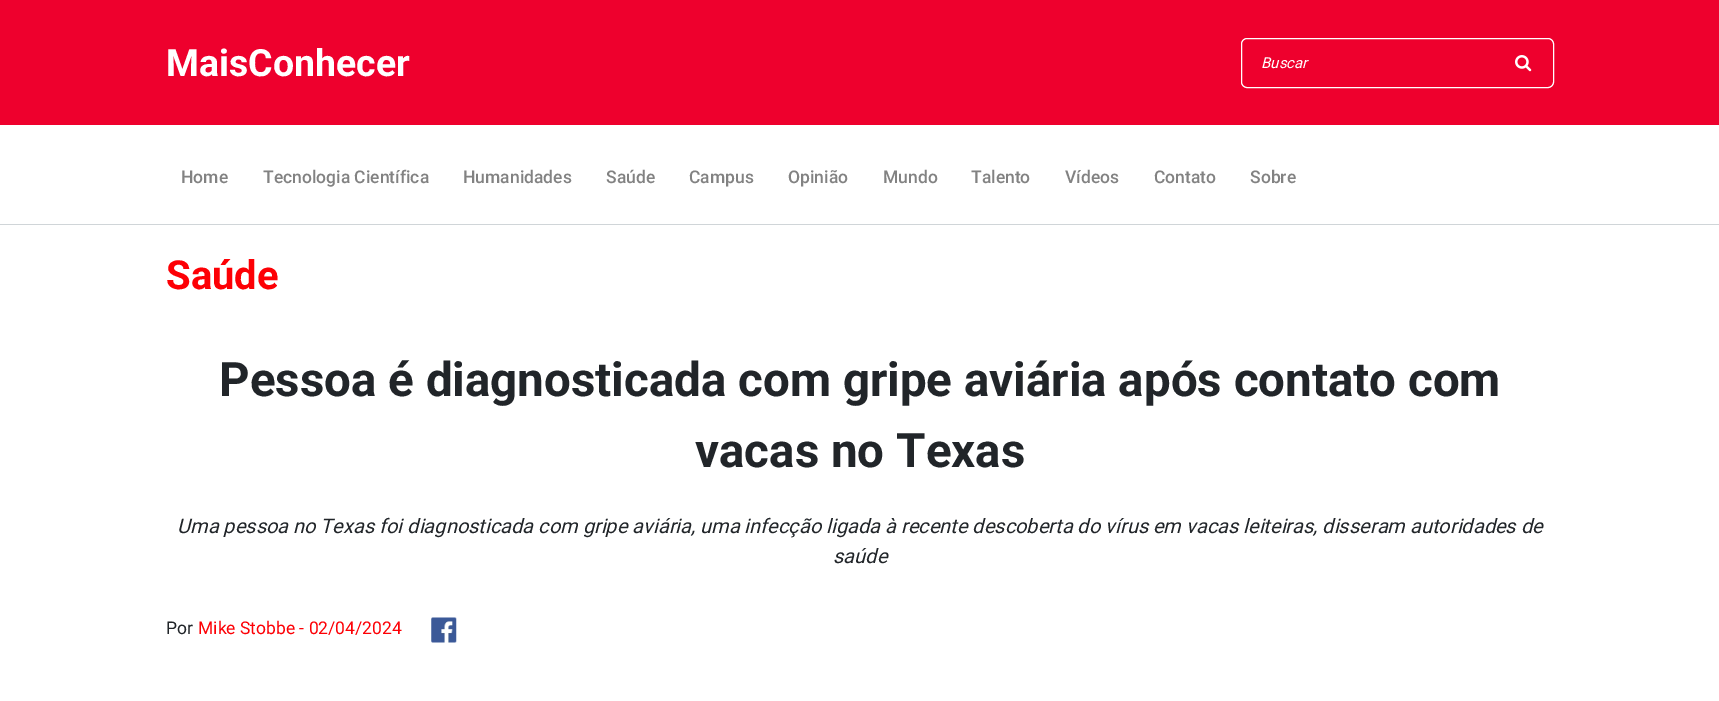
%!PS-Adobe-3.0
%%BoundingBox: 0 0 1719 701
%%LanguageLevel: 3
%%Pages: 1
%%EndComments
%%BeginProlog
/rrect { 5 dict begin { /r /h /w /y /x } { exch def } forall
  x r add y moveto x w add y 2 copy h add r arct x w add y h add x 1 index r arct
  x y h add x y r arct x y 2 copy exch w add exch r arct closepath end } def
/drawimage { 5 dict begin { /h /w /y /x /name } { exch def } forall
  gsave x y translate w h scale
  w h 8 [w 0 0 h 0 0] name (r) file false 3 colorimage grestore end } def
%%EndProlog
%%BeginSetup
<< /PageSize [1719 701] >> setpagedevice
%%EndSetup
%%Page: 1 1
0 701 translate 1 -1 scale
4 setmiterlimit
1 setgray
0 0 1719 701 rectfill
0.933 0 0.176 setrgbcolor
0 0 1719 125 rectfill
1 setgray
1241.5 38.5 312 49 5.5 rrect stroke
(images/1.raw) 1515 55 17 17 drawimage
0.816 0.835 0.847 setrgbcolor
0 224 1719 1 rectfill
(images/2.raw) 431 617 26 26 drawimage
/Roboto-Bold [37.5 0 0 -37.5 0 0] selectfont
1 setgray
166 76 moveto (MaisConhecer) show
/Roboto-Italic [15 0 0 -15 0 0] selectfont
1261 68 moveto (Buscar) show
/Roboto-Medium [17.5 0 0 -17.5 0 0] selectfont
0.51 setgray
181 183 moveto (Home) show
263 183 moveto (Tecnologia Científica) show
463 183 moveto (Humanidades) show
606 183 moveto (Saúde) show
689 183 moveto (Campus) show
788 183 moveto (Opinião) show
883 183 moveto (Mundo) show
971 183 moveto (Talento) show
1065 183 moveto (Vídeos) show
1154 183 moveto (Contato) show
1250 183 moveto (Sobre) show
/Roboto-Bold [40 0 0 -40 0 0] selectfont
0.992 0 0.02 setrgbcolor
166 289 moveto (Saúde) show
/Roboto-Bold [47.5 0 0 -47.5 0 0] selectfont
0.129 0.145 0.161 setrgbcolor
219 396 moveto (Pessoa é diagnosticada com gripe aviária após contato com) show
695 467 moveto (vacas no Texas) show
/Roboto-Italic [20 0 0 -20 0 0] selectfont
177 533 moveto (Uma pessoa no Texas foi diagnosticada com gripe aviária, uma infecção ligada à recente descoberta do vírus em vacas leiteiras, disseram autoridades de) show
833 563 moveto (saúde) show
/Roboto-Regular [17.5 0 0 -17.5 0 0] selectfont
166 634 moveto (Por) show
0.992 0 0.02 setrgbcolor
198 634 moveto (Mike Stobbe - 02/04/2024) show
showpage
%%EOF
